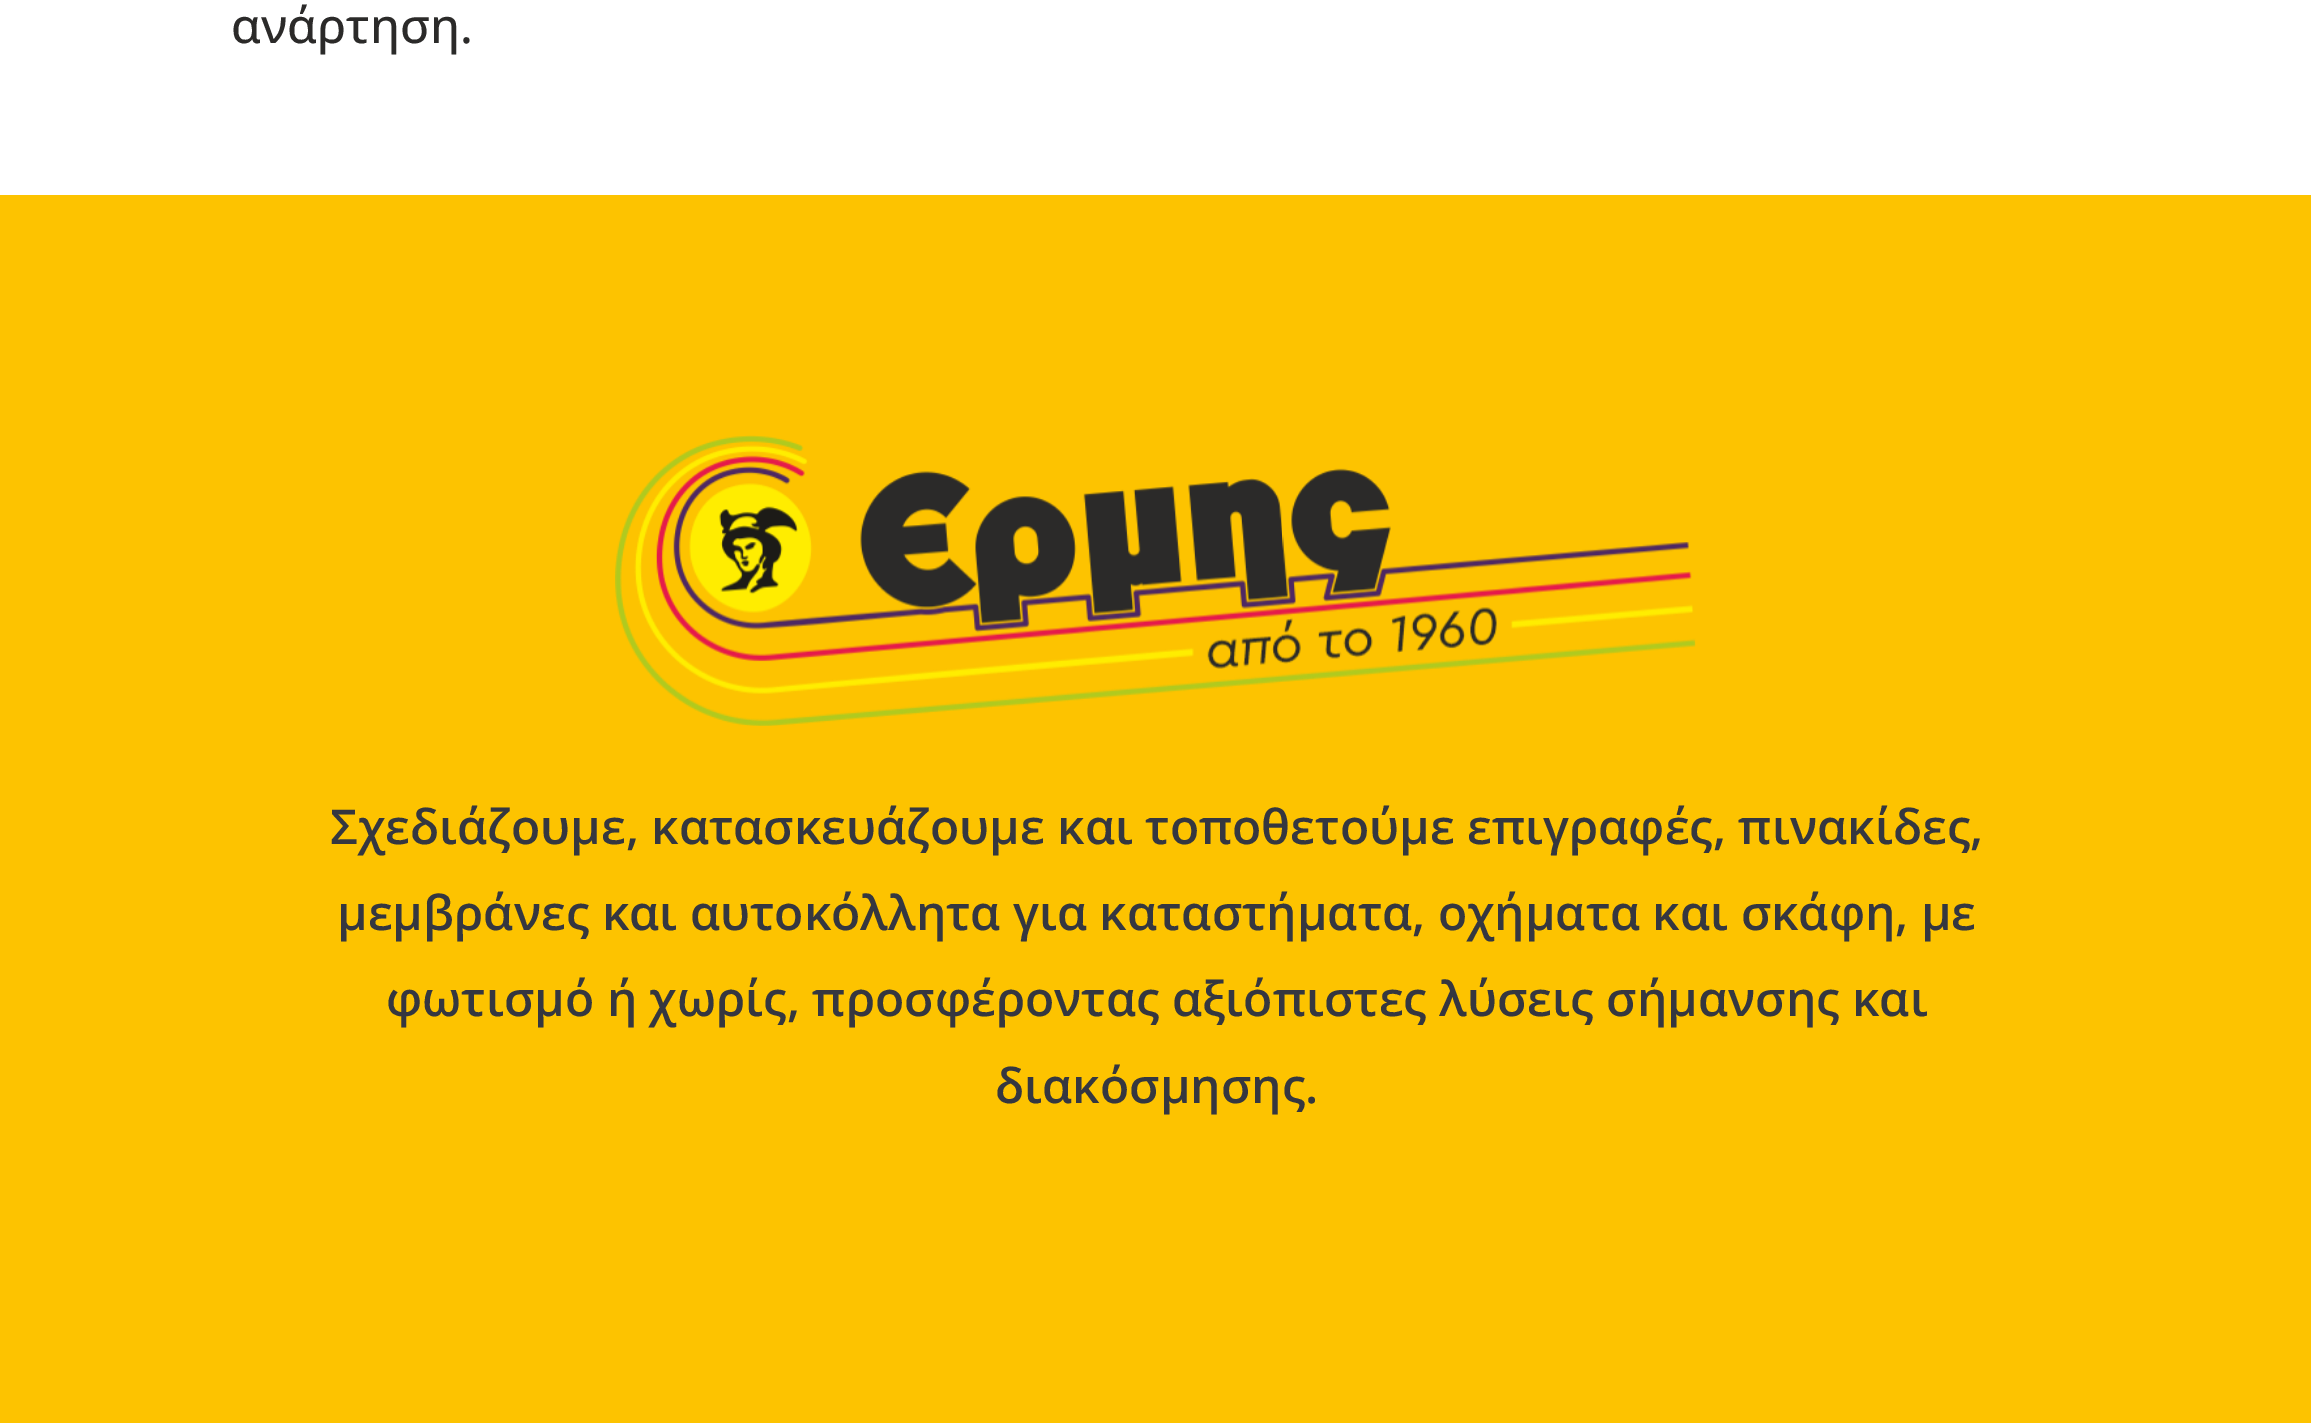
%!PS-Adobe-3.0
%%BoundingBox: 0 0 2311 1423
%%LanguageLevel: 3
%%Pages: 1
%%EndComments
%%BeginProlog
/drawimage { 5 dict begin { /h /w /y /x /name } { exch def } forall
  gsave x y translate w h scale
  w h 8 [w 0 0 h 0 0] name (r) file false 3 colorimage grestore end } def
%%EndProlog
%%BeginSetup
<< /PageSize [2311 1423] >> setpagedevice
%%EndSetup
%%Page: 1 1
0 1423 translate 1 -1 scale
4 setmiterlimit
1 setgray
0 0 2311 1423 rectfill
0.992 0.765 0 setrgbcolor
0 195 2311 1228 rectfill
(images/1.raw) 615 435 1081 291 drawimage
/OpenSans-Medium [48 0 0 -48 0 0] selectfont
0.169 0.165 0.161 setrgbcolor
231 43 moveto (ανάρτηση.) show
/OpenSans-SemiBold [48 0 0 -48 0 0] selectfont
0.208 0.216 0.251 setrgbcolor
330 844 moveto (Σχεδιάζουμε, κατασκευάζουμε και τοποθετούμε επιγραφές, πινακίδες,) show
337 930 moveto (μεμβράνες και αυτοκόλλητα για καταστήματα, οχήματα και σκάφη, με) show
386 1016 moveto (φωτισμό ή χωρίς, προσφέροντας αξιόπιστες λύσεις σήμανσης και) show
995 1103 moveto (διακόσμησης.) show
showpage
%%EOF
